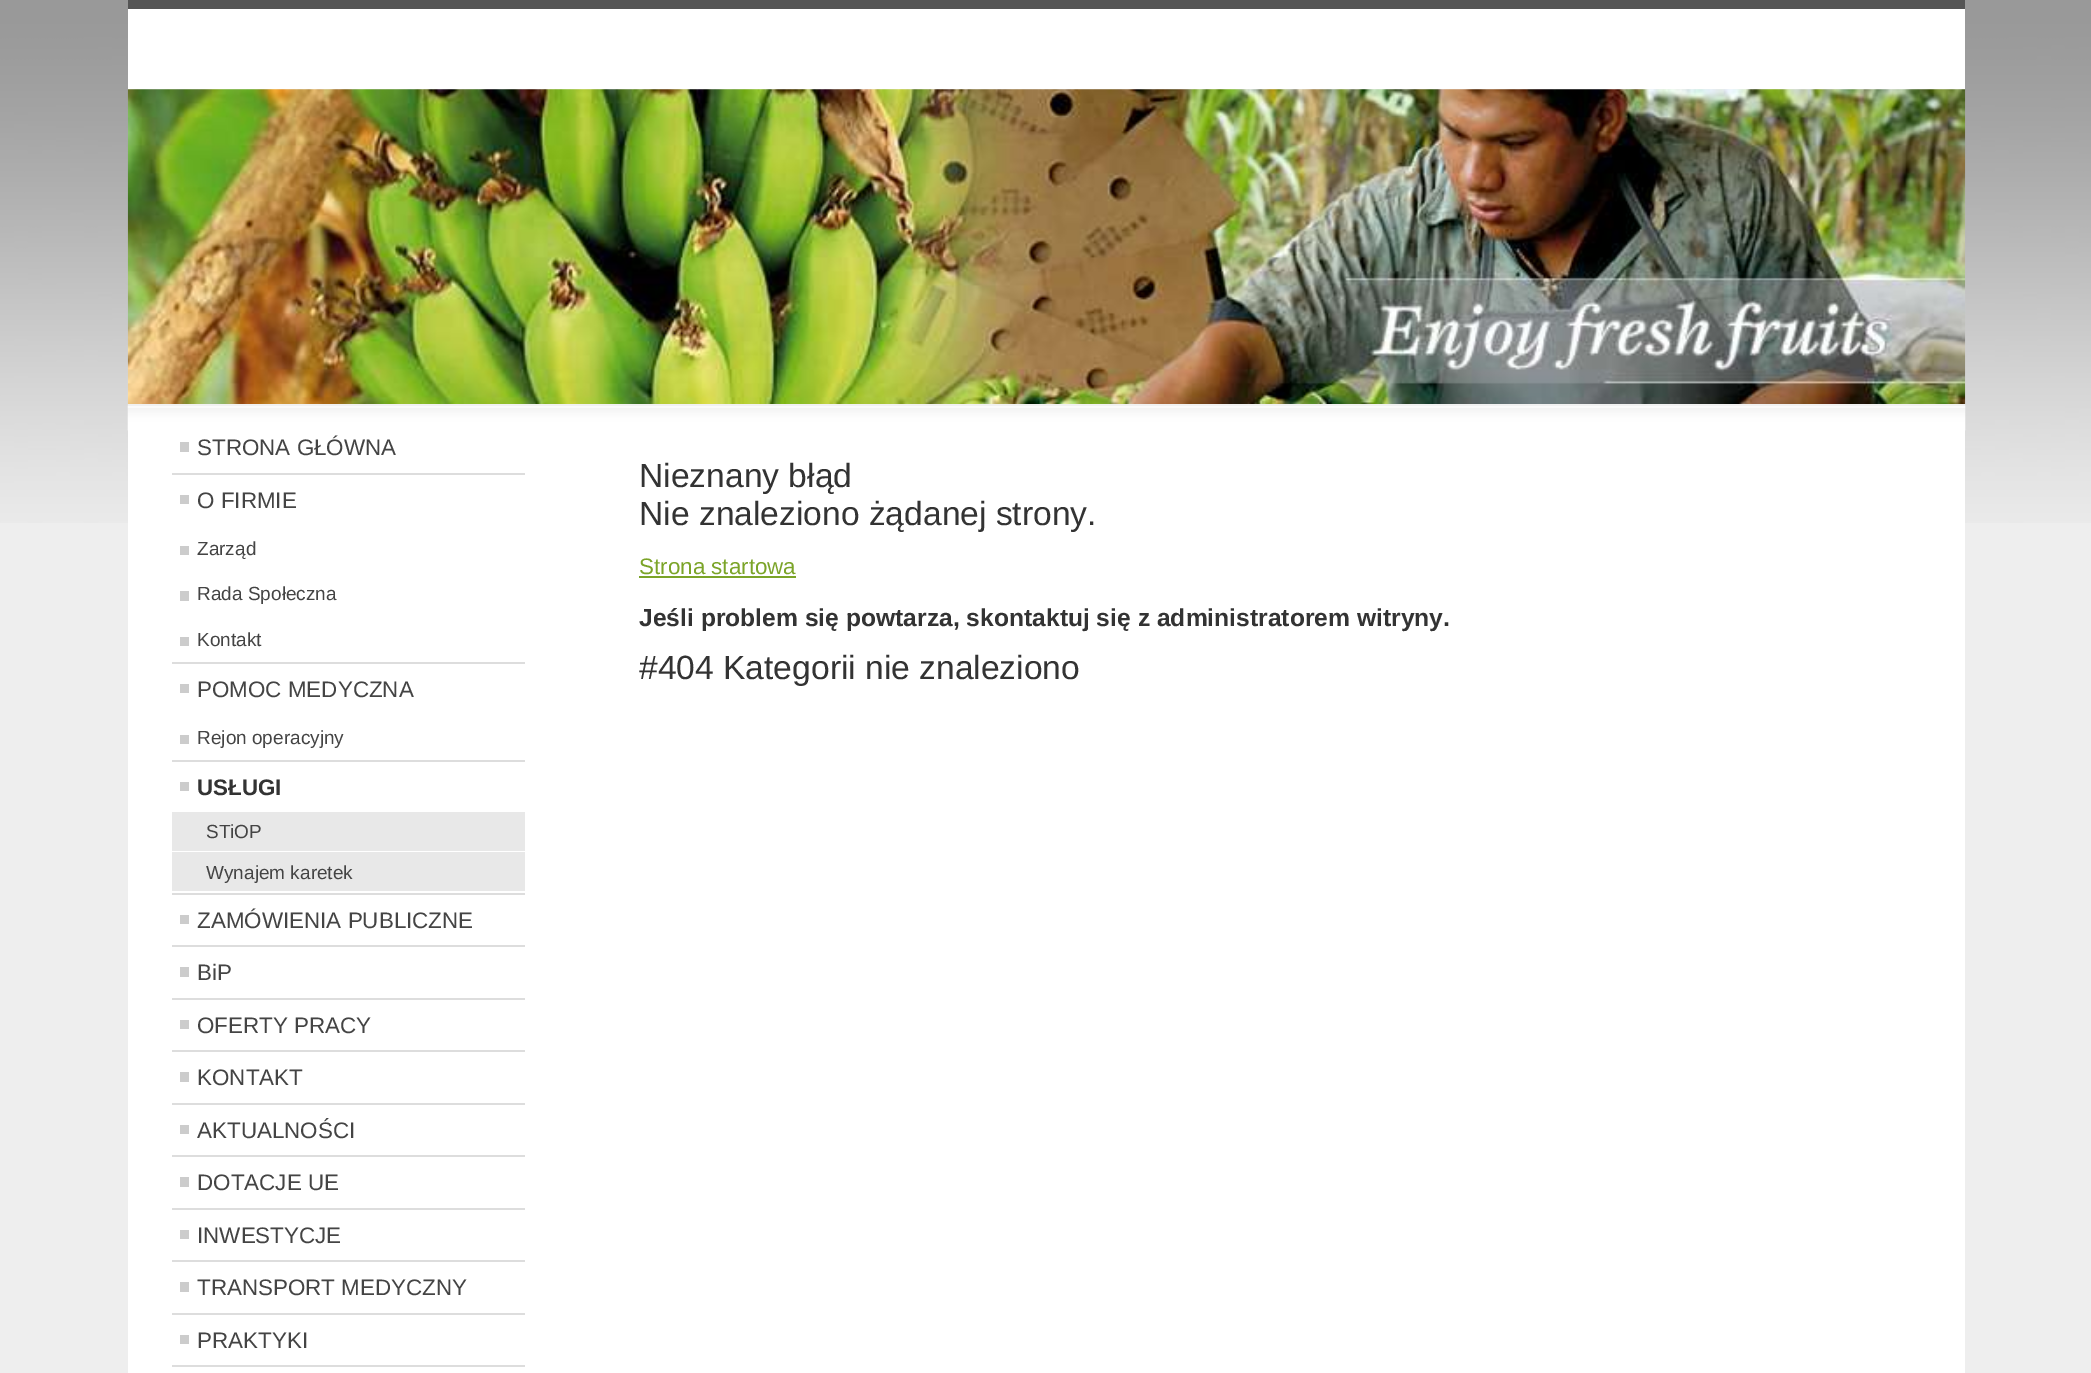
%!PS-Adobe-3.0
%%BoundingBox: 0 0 2091 1373
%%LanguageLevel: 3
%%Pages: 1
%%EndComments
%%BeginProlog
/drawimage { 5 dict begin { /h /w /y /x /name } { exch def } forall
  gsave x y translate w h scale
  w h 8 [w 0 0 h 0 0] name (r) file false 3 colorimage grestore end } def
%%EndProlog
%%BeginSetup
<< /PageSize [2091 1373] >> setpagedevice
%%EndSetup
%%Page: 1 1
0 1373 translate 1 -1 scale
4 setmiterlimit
0.933 setgray
0 0 2091 1373 rectfill
(images/1.raw) 0 0 2091 523 drawimage
1 setgray
128 9 1837 81 rectfill
0.333 setgray
128 0 1837 9 rectfill
(images/2.raw) 127 89 1839 315 drawimage
1 setgray
128 404 1837 969 rectfill
(images/3.raw) 127 404 1839 27 drawimage
0.867 setgray
172 473 353 2 rectfill
0.8 setgray
180 442 9 10 rectfill
0.867 setgray
172 662 353 2 rectfill
0.8 setgray
180 495 9 9 rectfill
180 546 9 9 rectfill
180 591 9 10 rectfill
180 637 9 9 rectfill
0.867 setgray
172 760 353 2 rectfill
0.8 setgray
180 684 9 9 rectfill
180 735 9 9 rectfill
0.867 setgray
172 893 353 2 rectfill
0.8 setgray
180 782 9 9 rectfill
0.91 setgray
172 812 353 39 rectfill
172 852 353 39 rectfill
0.867 setgray
172 945 353 2 rectfill
0.8 setgray
180 915 9 9 rectfill
0.867 setgray
172 998 353 2 rectfill
0.8 setgray
180 967 9 10 rectfill
0.867 setgray
172 1050 353 2 rectfill
0.8 setgray
180 1020 9 9 rectfill
0.867 setgray
172 1103 353 2 rectfill
0.8 setgray
180 1072 9 10 rectfill
0.867 setgray
172 1155 353 2 rectfill
0.8 setgray
180 1125 9 9 rectfill
0.867 setgray
172 1208 353 2 rectfill
0.8 setgray
180 1177 9 10 rectfill
0.867 setgray
172 1260 353 2 rectfill
0.8 setgray
180 1230 9 9 rectfill
0.867 setgray
172 1313 353 2 rectfill
0.8 setgray
180 1282 9 10 rectfill
0.867 setgray
172 1365 353 2 rectfill
0.8 setgray
180 1335 9 9 rectfill
0.482 0.643 0.157 setrgbcolor
639 576 157 2 rectfill
/LiberationSans-Regular [22.4 0 0 -22.4 0 0] selectfont
0.267 setgray
197 455 moveto (STRONA GŁÓWNA) show
197 508 moveto (O FIRMIE) show
/LiberationSans-Regular [19 0 0 -19 0 0] selectfont
197 555 moveto (Zarząd) show
197 600 moveto (Rada Społeczna) show
197 646 moveto (Kontakt) show
/LiberationSans-Regular [22.4 0 0 -22.4 0 0] selectfont
197 697 moveto (POMOC MEDYCZNA) show
/LiberationSans-Regular [19 0 0 -19 0 0] selectfont
197 744 moveto (Rejon operacyjny) show
/LiberationSans-Bold [22.4 0 0 -22.4 0 0] selectfont
0.2 setgray
197 795 moveto (USŁUGI) show
/LiberationSans-Regular [19 0 0 -19 0 0] selectfont
0.267 setgray
206 838 moveto (STiOP) show
206 879 moveto (Wynajem karetek) show
/LiberationSans-Regular [22.4 0 0 -22.4 0 0] selectfont
197 928 moveto (ZAMÓWIENIA PUBLICZNE) show
197 980 moveto (BiP) show
197 1033 moveto (OFERTY PRACY) show
197 1085 moveto (KONTAKT) show
197 1138 moveto (AKTUALNOŚCI) show
197 1190 moveto (DOTACJE UE) show
197 1243 moveto (INWESTYCJE) show
197 1295 moveto (TRANSPORT MEDYCZNY) show
197 1348 moveto (PRAKTYKI) show
/LiberationSans-Regular [33.6 0 0 -33.6 0 0] selectfont
0.2 setgray
639 487 moveto (Nieznany błąd) show
639 525 moveto (Nie znaleziono żądanej strony.) show
/LiberationSans-Regular [22.4 0 0 -22.4 0 0] selectfont
0.482 0.643 0.157 setrgbcolor
639 574 moveto (Strona startowa) show
/LiberationSans-Bold [24.65 0 0 -24.65 0 0] selectfont
0.2 setgray
639 626 moveto (Jeśli problem się powtarza, skontaktuj się z administratorem witryny.) show
/LiberationSans-Regular [33.6 0 0 -33.6 0 0] selectfont
639 679 moveto (#404 Kategorii nie znaleziono) show
showpage
%%EOF
